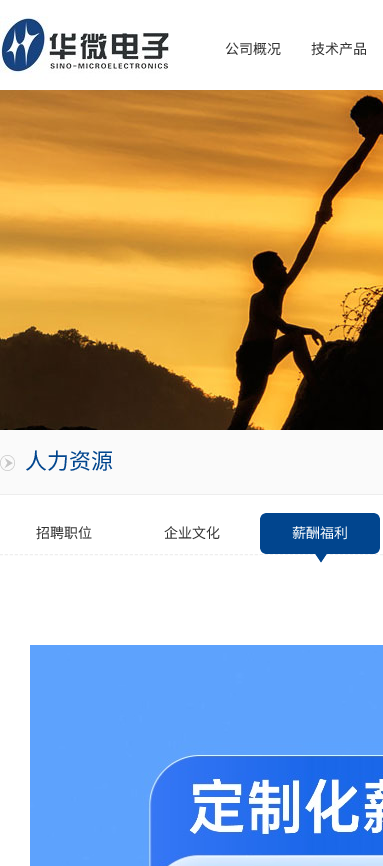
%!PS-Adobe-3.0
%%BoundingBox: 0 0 383 866
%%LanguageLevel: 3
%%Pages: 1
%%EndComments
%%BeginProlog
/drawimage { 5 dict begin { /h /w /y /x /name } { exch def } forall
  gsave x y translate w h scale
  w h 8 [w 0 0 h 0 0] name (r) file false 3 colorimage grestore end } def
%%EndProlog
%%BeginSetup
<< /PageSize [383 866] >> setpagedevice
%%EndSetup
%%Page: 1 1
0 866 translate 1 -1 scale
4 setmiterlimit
1 setgray
0 0 383 866 rectfill
(images/1.raw) 0 16 170 64 drawimage
(images/2.raw) 0 90 383 340 drawimage
0.98 setgray
0 430 383 64 rectfill
0.929 setgray
0 494 383 1 rectfill
(images/3.raw) 0 455 15 16 drawimage
0.937 setgray
[3 2] 0 setdash
newpath 0 554.5 moveto 383 554.5 lineto stroke
(images/4.raw) 260 513 120 50 drawimage
(images/5.raw) 30 645 353 221 drawimage
/NotoSansCJKSC-Regular [14 0 0 -14 0 0] selectfont
0.2 setgray
225 54 moveto (公司概况) show
311 54 moveto (技术产品) show
/NotoSansCJKSC-Regular [22 0 0 -22 0 0] selectfont
0.004 0.271 0.557 setrgbcolor
25 469 moveto (人力资源) show
/NotoSansCJKSC-Regular [14 0 0 -14 0 0] selectfont
0.2 setgray
36 538 moveto (招聘职位) show
164 538 moveto (企业文化) show
1 setgray
292 538 moveto (薪酬福利) show
showpage
%%EOF
